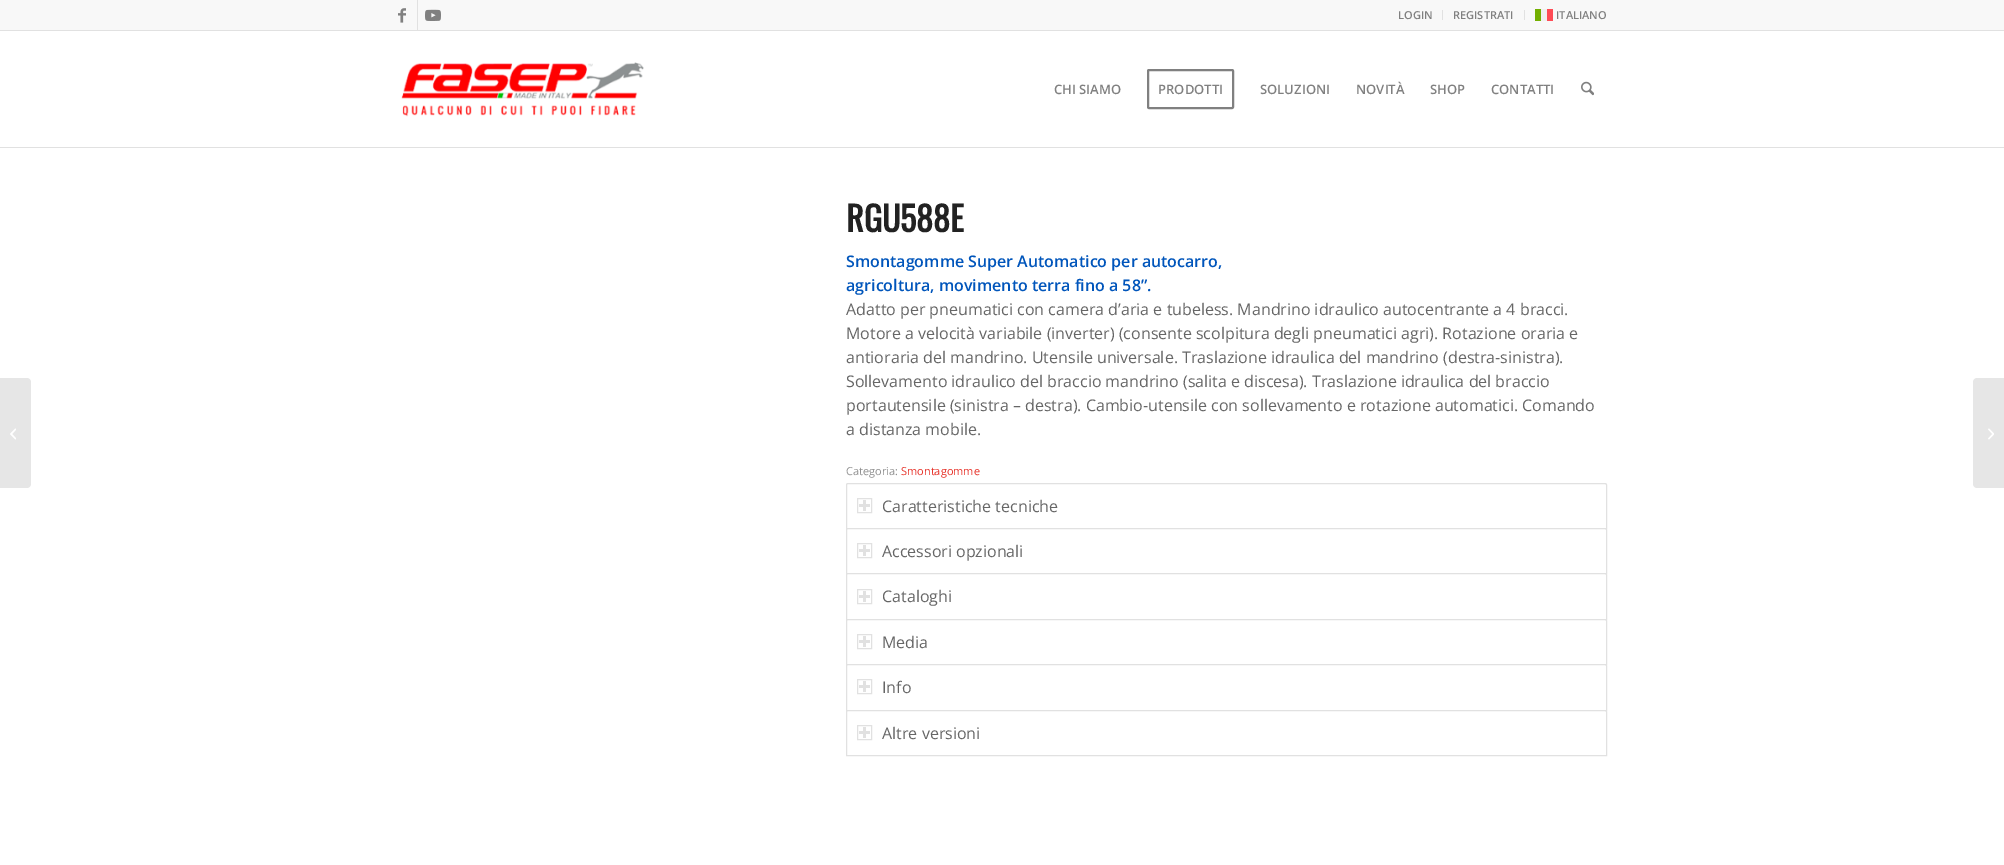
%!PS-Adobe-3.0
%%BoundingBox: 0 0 2004 865
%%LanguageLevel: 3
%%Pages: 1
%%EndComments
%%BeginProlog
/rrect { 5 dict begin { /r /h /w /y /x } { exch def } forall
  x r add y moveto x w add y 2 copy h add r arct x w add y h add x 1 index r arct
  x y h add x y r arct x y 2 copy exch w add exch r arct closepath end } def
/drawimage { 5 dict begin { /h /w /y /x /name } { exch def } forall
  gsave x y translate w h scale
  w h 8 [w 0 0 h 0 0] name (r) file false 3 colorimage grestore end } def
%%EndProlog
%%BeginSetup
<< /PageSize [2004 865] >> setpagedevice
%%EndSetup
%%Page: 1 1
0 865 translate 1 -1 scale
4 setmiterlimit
1 setgray
0 0 2004 865 rectfill
0.973 setgray
0 0 2004 30 rectfill
0.882 setgray
0 30 2004 1 rectfill
417 0 1 30 rectfill
(images/1.raw) 398 8 8 15 drawimage
(images/2.raw) 425 9 16 12 drawimage
1442 10 1 10 rectfill
1524 10 1 10 rectfill
0.941 setgray
1541 9 6 12 rectfill
1 0.294 0.333 setrgbcolor
1547 9 6 12 rectfill
0.451 0.686 0 setrgbcolor
1535 9 6 12 rectfill
0.882 setgray
0 147 2004 1 rectfill
(images/3.raw) 401 62 243 55 drawimage
0.502 setgray
2 setlinewidth
1148 70 85 38 1 rrect stroke
(images/4.raw) 1581 81 13 15 drawimage
0.902 setgray
newpath 0 378 moveto 27 378 lineto 29 378 31 380 31 382 curveto 31 484 lineto 31 486 29 488 27 488 curveto 0 488 lineto closepath fill
(images/5.raw) 10 428 6 12 drawimage
0.882 setgray
1 setlinewidth
newpath 848 483.5 moveto 1605 483.5 lineto 1606 483.5 1606.5 484 1606.5 485 curveto 1606.5 528.5 lineto 846.5 528.5 lineto 846.5 485 lineto 846.5 484 847 483.5 848 483.5 curveto closepath stroke
857.5 498.5 14 14 rectstroke
863 500 3 11 rectfill
859 504 11 3 rectfill
1 setgray
newpath 848 528.5 moveto 1605 528.5 lineto 1606 528.5 1606.5 529 1606.5 530 curveto 1606.5 573.5 lineto 846.5 573.5 lineto 846.5 530 lineto 846.5 529 847 528.5 848 528.5 curveto closepath gsave fill grestore
0.882 setgray
stroke
857.5 543.5 14 14 rectstroke
863 545 3 11 rectfill
859 549 11 3 rectfill
1 setgray
newpath 848 573.5 moveto 1605 573.5 lineto 1606 573.5 1606.5 574 1606.5 575 curveto 1606.5 619.5 lineto 846.5 619.5 lineto 846.5 575 lineto 846.5 574 847 573.5 848 573.5 curveto closepath gsave fill grestore
0.882 setgray
stroke
857.5 589.5 14 14 rectstroke
863 591 3 11 rectfill
859 595 11 3 rectfill
1 setgray
newpath 848 619.5 moveto 1605 619.5 lineto 1606 619.5 1606.5 620 1606.5 621 curveto 1606.5 664.5 lineto 846.5 664.5 lineto 846.5 621 lineto 846.5 620 847 619.5 848 619.5 curveto closepath gsave fill grestore
0.882 setgray
stroke
857.5 634.5 14 14 rectstroke
863 636 3 11 rectfill
859 640 11 3 rectfill
1 setgray
newpath 848 664.5 moveto 1605 664.5 lineto 1606 664.5 1606.5 665 1606.5 666 curveto 1606.5 710.5 lineto 846.5 710.5 lineto 846.5 666 lineto 846.5 665 847 664.5 848 664.5 curveto closepath gsave fill grestore
0.882 setgray
stroke
857.5 679.5 14 14 rectstroke
863 681 3 11 rectfill
859 685 11 3 rectfill
1 setgray
newpath 848 710.5 moveto 1605 710.5 lineto 1606 710.5 1606.5 711 1606.5 712 curveto 1606.5 755.5 lineto 846.5 755.5 lineto 846.5 712 lineto 846.5 711 847 710.5 848 710.5 curveto closepath gsave fill grestore
0.882 setgray
stroke
857.5 725.5 14 14 rectstroke
863 727 3 11 rectfill
859 731 11 3 rectfill
0.902 setgray
newpath 1977 378 moveto 2004 378 lineto 2004 488 lineto 1977 488 lineto 1975 488 1973 486 1973 484 curveto 1973 382 lineto 1973 380 1975 378 1977 378 curveto closepath fill
(images/6.raw) 1988 428 6 12 drawimage
/OpenSans-SemiBold [11 0 0 -11 0 0] selectfont
0.502 setgray
1398 19 moveto (LOGIN) show
1453 19 moveto (REGISTRATI) show
1556 19 moveto (ITALIANO) show
/OpenSans-SemiBold [13 0 0 -13 0 0] selectfont
1054 94 moveto (CHI SIAMO) show
1158 94 moveto (PRODOTTI) show
1260 94 moveto (SOLUZIONI) show
1356 94 moveto (NOVITÀ) show
1430 94 moveto (SHOP) show
1491 94 moveto (CONTATTI) show
/Oswald-Bold [34 0 0 -34 0 0] selectfont
0.133 setgray
846 232 moveto (RGU588E) show
/OpenSans-SemiBold [16 0 0 -16 0 0] selectfont
0 0.333 0.733 setrgbcolor
846 267 moveto (Smontagomme Super Automatico per autocarro,) show
846 291 moveto (agricoltura, movimento terra fino a 58”.) show
/OpenSans-Regular [16 0 0 -16 0 0] selectfont
0.4 setgray
846 315 moveto (Adatto per pneumatici con camera d’aria e tubeless. Mandrino idraulico autocentrante a 4 bracci.) show
846 339 moveto (Motore a velocità variabile \(inverter\) \(consente scolpitura degli pneumatici agri\). Rotazione oraria e) show
846 363 moveto (antioraria del mandrino. Utensile universale. Traslazione idraulica del mandrino \(destra-sinistra\).) show
846 387 moveto (Sollevamento idraulico del braccio mandrino \(salita e discesa\). Traslazione idraulica del braccio) show
846 411 moveto (portautensile \(sinistra – destra\). Cambio-utensile con sollevamento e rotazione automatici. Comando) show
846 435 moveto (a distanza mobile.) show
/OpenSans-Regular [11 0 0 -11 0 0] selectfont
0.569 setgray
846 475 moveto (Categoria:) show
0.906 0.2 0.165 setrgbcolor
901 475 moveto (Smontagomme) show
/OpenSans-Regular [16 0 0 -16 0 0] selectfont
0.4 setgray
882 512 moveto (Caratteristiche tecniche) show
882 557 moveto (Accessori opzionali) show
882 602 moveto (Cataloghi) show
882 648 moveto (Media) show
882 693 moveto (Info) show
882 739 moveto (Altre versioni) show
showpage
%%EOF
